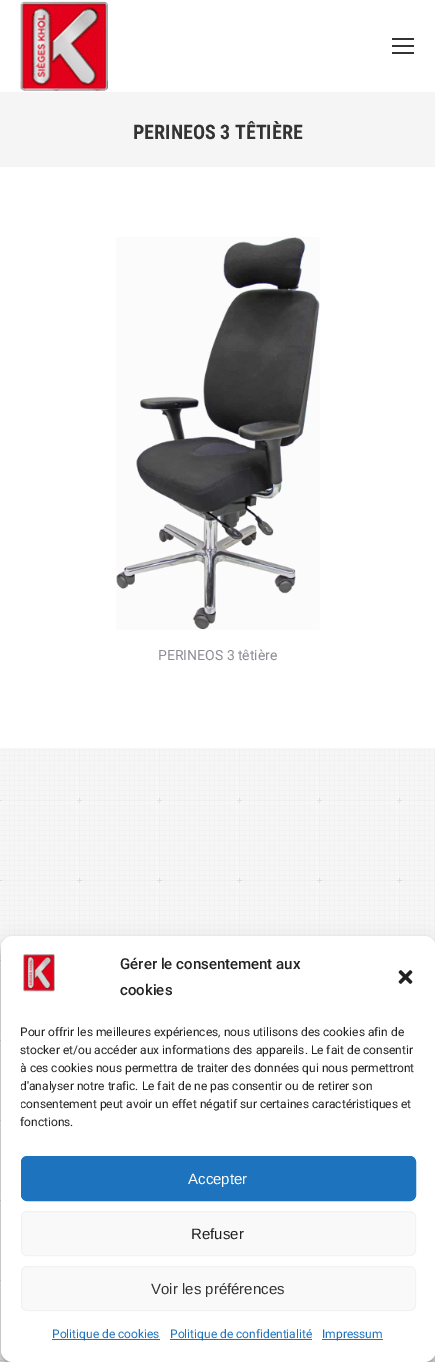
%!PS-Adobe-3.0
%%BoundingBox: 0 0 435 1362
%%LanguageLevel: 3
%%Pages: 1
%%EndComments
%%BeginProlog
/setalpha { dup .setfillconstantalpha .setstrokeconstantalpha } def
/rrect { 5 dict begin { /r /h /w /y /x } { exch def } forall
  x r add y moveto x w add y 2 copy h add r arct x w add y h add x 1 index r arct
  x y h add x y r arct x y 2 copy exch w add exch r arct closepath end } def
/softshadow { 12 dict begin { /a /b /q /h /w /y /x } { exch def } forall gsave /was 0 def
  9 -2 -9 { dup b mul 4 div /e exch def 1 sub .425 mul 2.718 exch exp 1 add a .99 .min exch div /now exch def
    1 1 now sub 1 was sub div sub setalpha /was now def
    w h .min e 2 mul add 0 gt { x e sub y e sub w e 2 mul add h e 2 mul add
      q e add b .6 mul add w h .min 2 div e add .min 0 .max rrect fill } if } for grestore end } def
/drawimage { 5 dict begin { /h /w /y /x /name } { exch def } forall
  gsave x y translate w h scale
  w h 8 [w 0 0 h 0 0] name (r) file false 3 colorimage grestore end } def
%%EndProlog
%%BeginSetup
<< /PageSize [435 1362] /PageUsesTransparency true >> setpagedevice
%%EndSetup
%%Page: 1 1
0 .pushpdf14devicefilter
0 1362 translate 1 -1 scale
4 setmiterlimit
0.969 setgray
0 0 435 1362 rectfill
(images/1.raw) 0 748 435 614 drawimage
1 setgray
0 0 435 748 rectfill
(images/2.raw) 20 1 88 91 drawimage
0.2 setgray
392 38 22 2 rectfill
392 45 22 2 rectfill
392 52 22 2 rectfill
0.961 setgray
0 92 435 75 rectfill
(images/3.raw) 116 237 205 393 drawimage
gsave
newpath 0 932 moveto 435 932 lineto 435 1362 lineto 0 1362 lineto closepath 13 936 moveto 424 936 lineto 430.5 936 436 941.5 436 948 curveto 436 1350 lineto 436 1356.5 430.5 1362 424 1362 curveto 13 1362 lineto 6.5 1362 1 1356.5 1 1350 curveto 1 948 lineto 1 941.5 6.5 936 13 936 curveto closepath eoclip newpath
0 setgray
1 942 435 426 12 3 0.23 softshadow
grestore
gsave
newpath 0 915 moveto 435 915 lineto 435 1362 lineto 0 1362 lineto closepath 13 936 moveto 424 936 lineto 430.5 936 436 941.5 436 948 curveto 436 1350 lineto 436 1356.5 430.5 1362 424 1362 curveto 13 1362 lineto 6.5 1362 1 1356.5 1 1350 curveto 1 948 lineto 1 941.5 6.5 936 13 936 curveto closepath eoclip newpath
0 setgray
1 946 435 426 12 10 0.19 softshadow
grestore
1 setgray
1 936 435 426 12 rrect fill
(images/4.raw) 23 954 32 38 drawimage
(images/5.raw) 398 970 15 14 drawimage
0.118 0.451 0.745 setrgbcolor
21.5 1156.5 394 44 5.5 rrect gsave fill grestore
stroke
0.976 setgray
21.5 1211.5 394 44 5.5 rrect gsave fill grestore
0.949 setgray
stroke
0.976 setgray
21.5 1266.5 394 44 5.5 rrect gsave fill grestore
0.949 setgray
stroke
0.118 0.451 0.745 setrgbcolor
52 1339 108 1 rectfill
170 1339 142 1 rectfill
322 1339 61 1 rectfill
/RobotoCondensed-Bold [20 0 0 -20 0 0] selectfont
0.2 setgray
133 139 moveto (PERINEOS 3 TÊTIÈRE) show
/Roboto-Regular [14 0 0 -14 0 0] selectfont
0.545 0.553 0.58 setrgbcolor
158 660 moveto (PERINEOS 3 têtière) show
/Roboto-Medium [15 0 0 -15 0 0] selectfont
0.133 setgray
120 969 moveto (Gérer le consentement aux) show
120 995 moveto (cookies) show
/Roboto-Regular [12 0 0 -12 0 0] selectfont
20 1036 moveto (Pour offrir les meilleures expériences, nous utilisons des cookies afin de) show
20 1054 moveto (stocker et/ou accéder aux informations des appareils. Le fait de consentir) show
gsave
21 1023 395 113 rectclip
20 1072 moveto (à ces cookies nous permettra de traiter des données qui nous permettront) show
20 1090 moveto (d'analyser notre trafic. Le fait de ne pas consentir ou de retirer son) show
20 1108 moveto (consentement peut avoir un effet négatif sur certaines caractéristiques et) show
grestore
20 1126 moveto (fonctions.) show
/LiberationSans-Regular [15 0 0 -15 0 0] selectfont
1 setgray
188 1184 moveto (Accepter) show
0.133 setgray
191 1239 moveto (Refuser) show
0.2 setgray
151 1294 moveto (Voir les préférences) show
/Roboto-Regular [12 0 0 -12 0 0] selectfont
0.118 0.451 0.745 setrgbcolor
52 1338 moveto (Politique de cookies) show
170 1338 moveto (Politique de confidentialité) show
322 1338 moveto (Impressum) show
.poppdf14devicefilter showpage
%%EOF
